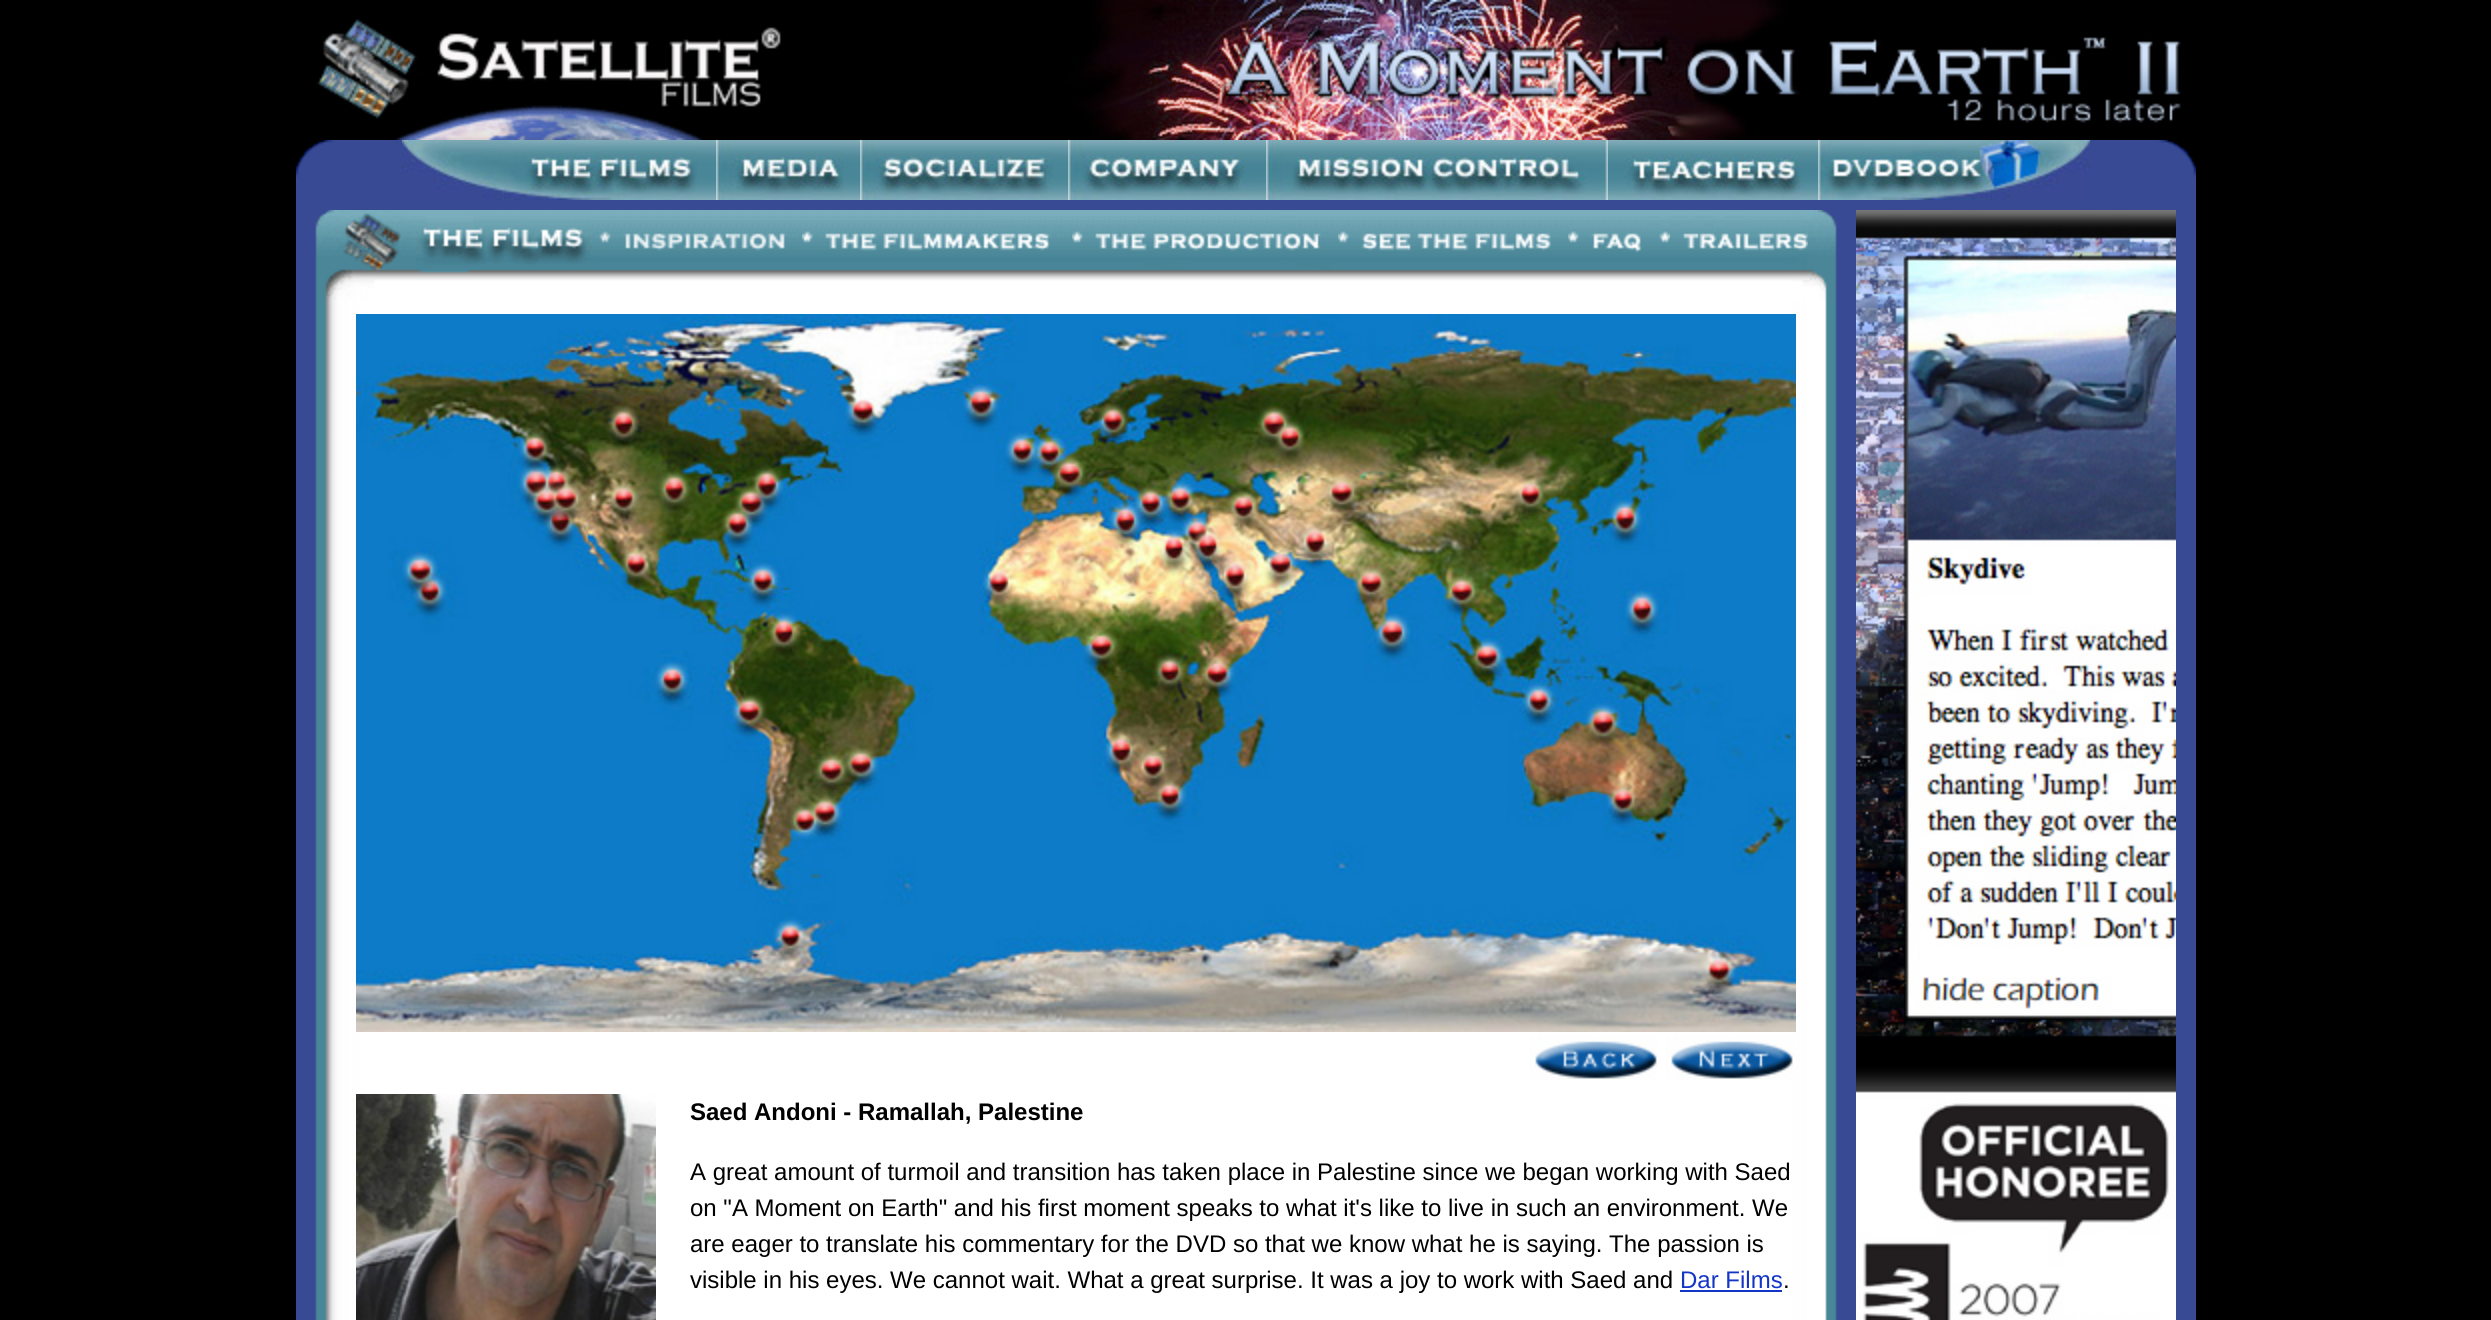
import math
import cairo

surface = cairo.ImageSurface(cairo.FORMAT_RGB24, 2491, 1320)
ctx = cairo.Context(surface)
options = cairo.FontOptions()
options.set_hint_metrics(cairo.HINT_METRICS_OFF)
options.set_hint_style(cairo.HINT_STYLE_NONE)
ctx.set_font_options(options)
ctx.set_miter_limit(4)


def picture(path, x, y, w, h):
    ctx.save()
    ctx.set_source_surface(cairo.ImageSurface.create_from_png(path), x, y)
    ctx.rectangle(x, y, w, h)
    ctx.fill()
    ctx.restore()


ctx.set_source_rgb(0, 0, 0)
ctx.paint()
picture("img1.png", 317, 0, 1864, 140)
ctx.set_source_rgb(0.224, 0.29, 0.58)
ctx.rectangle(296, 177, 1900, 1143)
ctx.fill()
picture("img2.png", 296, 140, 1900, 37)
picture("img3.png", 697, 140, 371, 60)
picture("img4.png", 402, 140, 295, 60)
picture("img5.png", 716, 140, 128, 60)
picture("img6.png", 860, 140, 193, 60)
picture("img7.png", 1068, 140, 198, 60)
picture("img8.png", 1266, 140, 342, 60)
picture("img9.png", 1608, 140, 210, 60)
picture("img10.png", 1818, 140, 272, 60)
picture("img11.png", 315, 300, 1522, 1020)
picture("img12.png", 315, 210, 1522, 90)
picture("img13.png", 416, 216, 176, 54)
picture("img14.png", 592, 231, 210, 39)
picture("img15.png", 802, 231, 270, 39)
picture("img16.png", 1072, 231, 266, 39)
picture("img17.png", 1338, 231, 230, 39)
picture("img18.png", 1568, 225, 102, 45)
picture("img19.png", 1670, 225, 138, 45)
picture("img20.png", 356, 314, 1440, 718)
picture("img21.png", 1530, 1036, 127, 44)
picture("img22.png", 1666, 1036, 127, 44)
picture("img23.png", 356, 1094, 300, 226)
ctx.select_font_face("Liberation Sans", cairo.FONT_SLANT_NORMAL, cairo.FONT_WEIGHT_BOLD)
ctx.set_font_size(24)
ctx.set_source_rgb(0, 0, 0)
ctx.move_to(690, 1120)
ctx.show_text("Saed Andoni - Ramallah, Palestine")
ctx.select_font_face("Liberation Sans")
ctx.move_to(690, 1180)
ctx.show_text("A great amount of turmoil and transition has taken place in Palestine since we began working with Saed")
ctx.move_to(690, 1216)
ctx.show_text("on \"A Moment on Earth\" and his first moment speaks to what it's like to live in such an environment. We")
ctx.move_to(690, 1252)
ctx.show_text("are eager to translate his commentary for the DVD so that we know what he is saying. The passion is")
ctx.move_to(690, 1288)
ctx.show_text("visible in his eyes. We cannot wait. What a great surprise. It was a joy to work with Saed and")
ctx.set_source_rgb(0.078, 0.212, 0.78)
ctx.move_to(1680, 1288)
ctx.show_text("Dar Films")
ctx.rectangle(1680, 1290, 102, 2)
ctx.fill()
ctx.set_source_rgb(0, 0, 0)
ctx.move_to(1783, 1288)
ctx.show_text(".")
picture("img24.png", 1856, 210, 320, 1110)
surface.write_to_png("page.png")
